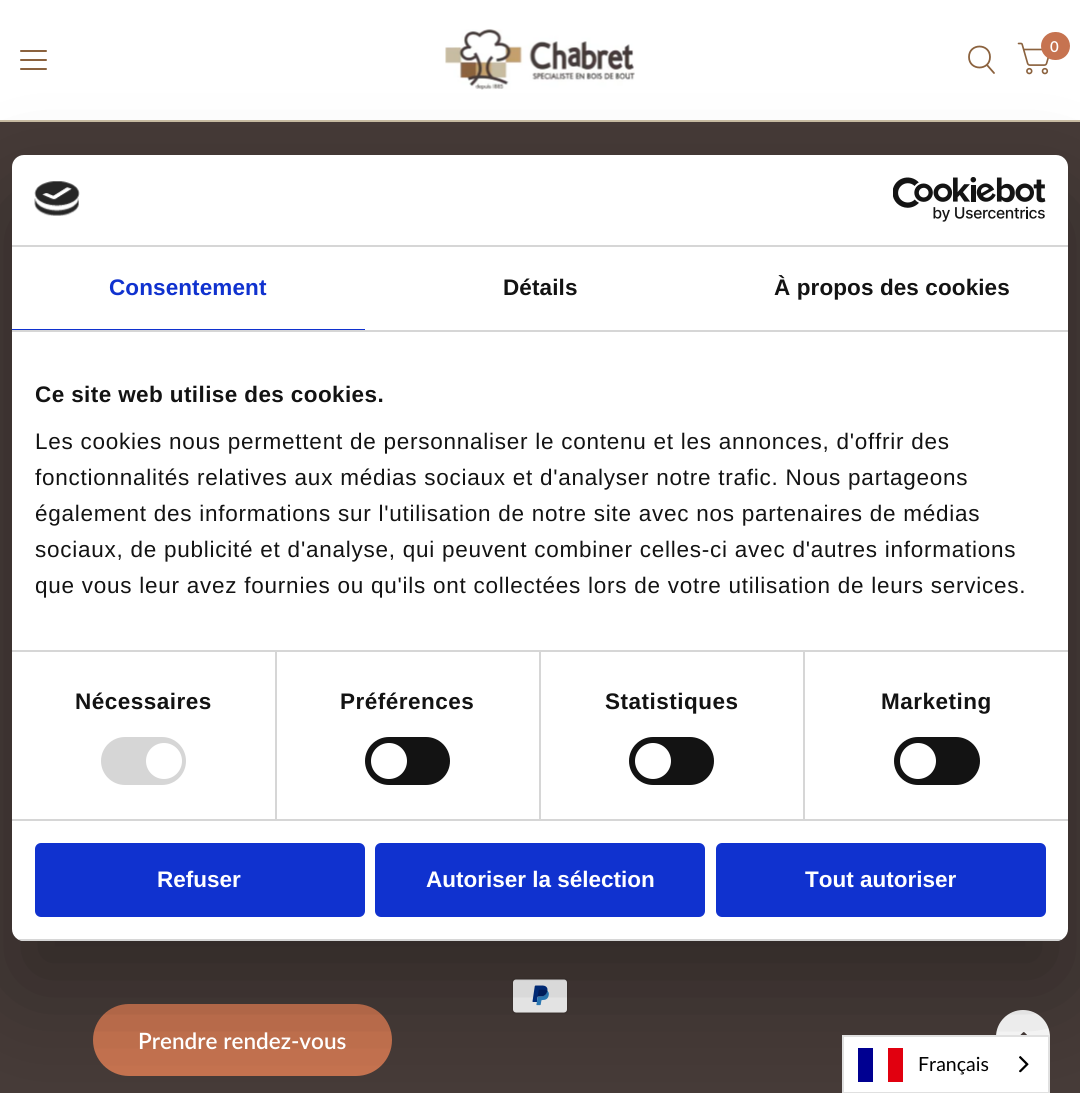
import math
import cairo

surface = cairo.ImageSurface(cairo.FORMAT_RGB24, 1080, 1093)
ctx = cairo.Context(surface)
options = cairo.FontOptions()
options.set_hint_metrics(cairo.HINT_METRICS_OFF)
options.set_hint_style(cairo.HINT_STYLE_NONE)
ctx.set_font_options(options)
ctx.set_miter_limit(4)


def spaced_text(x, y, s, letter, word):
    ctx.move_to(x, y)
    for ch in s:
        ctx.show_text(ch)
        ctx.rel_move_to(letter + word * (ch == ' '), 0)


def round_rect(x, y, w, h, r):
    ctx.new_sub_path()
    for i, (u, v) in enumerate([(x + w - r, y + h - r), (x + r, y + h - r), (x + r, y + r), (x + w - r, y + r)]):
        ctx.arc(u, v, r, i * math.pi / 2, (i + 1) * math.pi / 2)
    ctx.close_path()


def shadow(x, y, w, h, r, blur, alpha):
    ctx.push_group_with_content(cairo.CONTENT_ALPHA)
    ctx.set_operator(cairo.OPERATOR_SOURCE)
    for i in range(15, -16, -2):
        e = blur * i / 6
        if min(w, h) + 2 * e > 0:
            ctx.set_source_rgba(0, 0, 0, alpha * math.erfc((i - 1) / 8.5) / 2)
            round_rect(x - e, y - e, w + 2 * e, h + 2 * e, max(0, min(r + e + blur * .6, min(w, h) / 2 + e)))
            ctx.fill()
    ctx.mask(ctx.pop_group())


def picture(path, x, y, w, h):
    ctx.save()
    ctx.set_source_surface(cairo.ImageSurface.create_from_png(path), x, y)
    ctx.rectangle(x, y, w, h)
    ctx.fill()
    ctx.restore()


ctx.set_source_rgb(0.275, 0.231, 0.22)
ctx.paint()
ctx.set_source_rgb(1, 1, 1)
ctx.rectangle(0, 0, 1080, 120)
ctx.fill()
ctx.set_source_rgb(0.784, 0.737, 0.639)
ctx.rectangle(0, 120, 1080, 2)
ctx.fill()
picture("img1.png", 445, 29, 190, 61)
ctx.new_path()
ctx.move_to(987, 65)
ctx.line_to(994, 73)
ctx.move_to(990, 57)
ctx.curve_to(990, 71, 969, 71, 969, 57)
ctx.curve_to(969, 43, 990, 43, 990, 57)
ctx.close_path()
ctx.set_source_rgb(0.545, 0.384, 0.243)
ctx.set_line_width(1.8)
ctx.set_line_cap(cairo.LINE_CAP_ROUND)
ctx.set_line_join(cairo.LINE_JOIN_ROUND)
ctx.stroke()
picture("img2.png", 1017, 42, 32, 33)
ctx.set_source_rgb(0.776, 0.451, 0.314)
round_rect(1041, 32, 29, 28, 14)
ctx.fill()
ctx.select_font_face("Lato SemiBold")
ctx.set_font_size(15)
ctx.set_source_rgb(1, 1, 1)
ctx.move_to(1050, 52)
ctx.show_text("0")
ctx.set_source_rgb(0.545, 0.384, 0.243)
round_rect(20, 50, 27, 2, 1)
ctx.fill()
round_rect(20, 59, 27, 2, 1)
ctx.fill()
round_rect(20, 68, 27, 2, 1)
ctx.fill()
picture("img3.png", 512, 978, 56, 36)
ctx.set_source_rgb(0.776, 0.451, 0.314)
round_rect(93, 1004, 299, 72, 36)
ctx.fill()
ctx.set_source_rgb(1, 1, 1)
ctx.arc(1023, 1037, 27, 0, 2 * math.pi)
ctx.fill()
picture("img6.png", 1020, 1032, 7, 3)
ctx.set_source_rgb(0, 0, 0)
shadow(12, 203, 1056, 786, 12, 51, 0.3)
ctx.set_source_rgb(1, 1, 1)
round_rect(12, 155, 1056, 786, 12)
ctx.fill()
ctx.set_source_rgb(0.839, 0.839, 0.839)
ctx.rectangle(12, 245, 1056, 2)
ctx.fill()
picture("img4.png", 34, 181, 46, 35)
picture("img5.png", 893, 177, 153, 45)
ctx.rectangle(12, 330, 1056, 2)
ctx.fill()
ctx.set_source_rgb(0.063, 0.196, 0.812)
ctx.rectangle(12, 329, 353, 1)
ctx.fill()
ctx.select_font_face("Liberation Sans", cairo.FONT_SLANT_NORMAL, cairo.FONT_WEIGHT_BOLD)
ctx.set_font_size(22.5)
spaced_text(109, 295, "Consentement", 0.1, 0)
ctx.set_source_rgb(0.078, 0.078, 0.078)
spaced_text(503, 295, "Détails", 0.1, 0)
spaced_text(774, 295, "À propos des cookies", 0.1, 0)
ctx.set_source_rgb(0.839, 0.839, 0.839)
ctx.rectangle(275, 651, 2, 168)
ctx.fill()
ctx.rectangle(539, 651, 2, 168)
ctx.fill()
ctx.rectangle(803, 651, 2, 168)
ctx.fill()
ctx.rectangle(12, 650, 1056, 2)
ctx.fill()
ctx.set_source_rgb(0.078, 0.078, 0.078)
spaced_text(35, 402, "Ce site web utilise des cookies.", 0.4, 0)
ctx.select_font_face("Liberation Sans")
spaced_text(35, 449, "Les cookies nous permettent de personnaliser le contenu et les annonces, d'offrir des", 0.75, 0)
spaced_text(35, 485, "fonctionnalités relatives aux médias sociaux et d'analyser notre trafic. Nous partageons", 0.75, 0)
spaced_text(35, 521, "également des informations sur l'utilisation de notre site avec nos partenaires de médias", 0.75, 0)
spaced_text(35, 557, "sociaux, de publicité et d'analyse, qui peuvent combiner celles-ci avec d'autres informations", 0.75, 0)
spaced_text(35, 593, "que vous leur avez fournies ou qu'ils ont collectées lors de votre utilisation de leurs services.", 0.75, 0)
ctx.set_source_rgb(0.839, 0.839, 0.839)
ctx.rectangle(12, 819, 1056, 2)
ctx.fill()
ctx.select_font_face("Liberation Sans", cairo.FONT_SLANT_NORMAL, cairo.FONT_WEIGHT_BOLD)
ctx.set_source_rgb(0.078, 0.078, 0.078)
spaced_text(75, 709, "Nécessaires", 0.5, 0)
ctx.set_source_rgb(0.839, 0.839, 0.839)
round_rect(101, 737, 85, 48, 24)
ctx.fill()
ctx.set_source_rgb(1, 1, 1)
ctx.arc(164, 761, 18, 0, 2 * math.pi)
ctx.fill()
ctx.set_source_rgb(0.078, 0.078, 0.078)
spaced_text(340, 709, "Préférences", 0.5, 0)
round_rect(365, 737, 85, 48, 24)
ctx.fill()
ctx.set_source_rgb(1, 1, 1)
ctx.arc(389, 761, 18, 0, 2 * math.pi)
ctx.fill()
ctx.set_source_rgb(0.078, 0.078, 0.078)
spaced_text(605, 709, "Statistiques", 0.5, 0)
round_rect(629, 737, 85, 48, 24)
ctx.fill()
ctx.set_source_rgb(1, 1, 1)
ctx.arc(653, 761, 18, 0, 2 * math.pi)
ctx.fill()
ctx.set_source_rgb(0.078, 0.078, 0.078)
spaced_text(881, 709, "Marketing", 0.5, 0)
round_rect(894, 737, 86, 48, 24)
ctx.fill()
ctx.set_source_rgb(1, 1, 1)
ctx.arc(918, 761, 18, 0, 2 * math.pi)
ctx.fill()
ctx.save()
round_rect(12, 155, 1056, 786, 12)
ctx.clip()
ctx.set_source_rgb(0.839, 0.839, 0.839)
ctx.rectangle(12, 939, 1056, 2)
ctx.fill()
ctx.restore()
ctx.set_source_rgb(0.063, 0.196, 0.812)
round_rect(36.5, 844.5, 327, 71, 4.5)
ctx.fill_preserve()
ctx.set_line_width(3)
ctx.set_line_cap(cairo.LINE_CAP_BUTT)
ctx.set_line_join(cairo.LINE_JOIN_MITER)
ctx.stroke()
ctx.set_source_rgb(1, 1, 1)
ctx.move_to(157, 887)
ctx.show_text("Refuser")
ctx.set_source_rgb(0.063, 0.196, 0.812)
round_rect(376.5, 844.5, 327, 71, 4.5)
ctx.fill_preserve()
ctx.stroke()
ctx.set_source_rgb(1, 1, 1)
ctx.move_to(426, 887)
ctx.show_text("Autoriser la sélection")
ctx.set_source_rgb(0.063, 0.196, 0.812)
round_rect(717.5, 844.5, 327, 71, 4.5)
ctx.fill_preserve()
ctx.stroke()
ctx.set_source_rgb(1, 1, 1)
ctx.move_to(805, 887)
ctx.show_text("Tout autoriser")
ctx.select_font_face("Lato SemiBold")
ctx.move_to(138, 1049)
ctx.show_text("Prendre rendez-vous")
ctx.rectangle(843, 1036, 206, 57)
ctx.fill_preserve()
ctx.set_source_rgb(0.878, 0.878, 0.878)
ctx.set_line_width(2)
ctx.stroke()
ctx.set_source_rgb(0, 0, 0.569)
ctx.rectangle(858, 1048, 15, 34)
ctx.fill()
ctx.set_source_rgb(0.882, 0, 0.059)
ctx.rectangle(888, 1048, 15, 34)
ctx.fill()
ctx.select_font_face("Lato")
ctx.set_font_size(19.5)
ctx.set_source_rgb(0, 0, 0)
ctx.move_to(918, 1071)
ctx.show_text("Français")
picture("img7.png", 1019, 1056, 10, 17)
surface.write_to_png("page.png")
